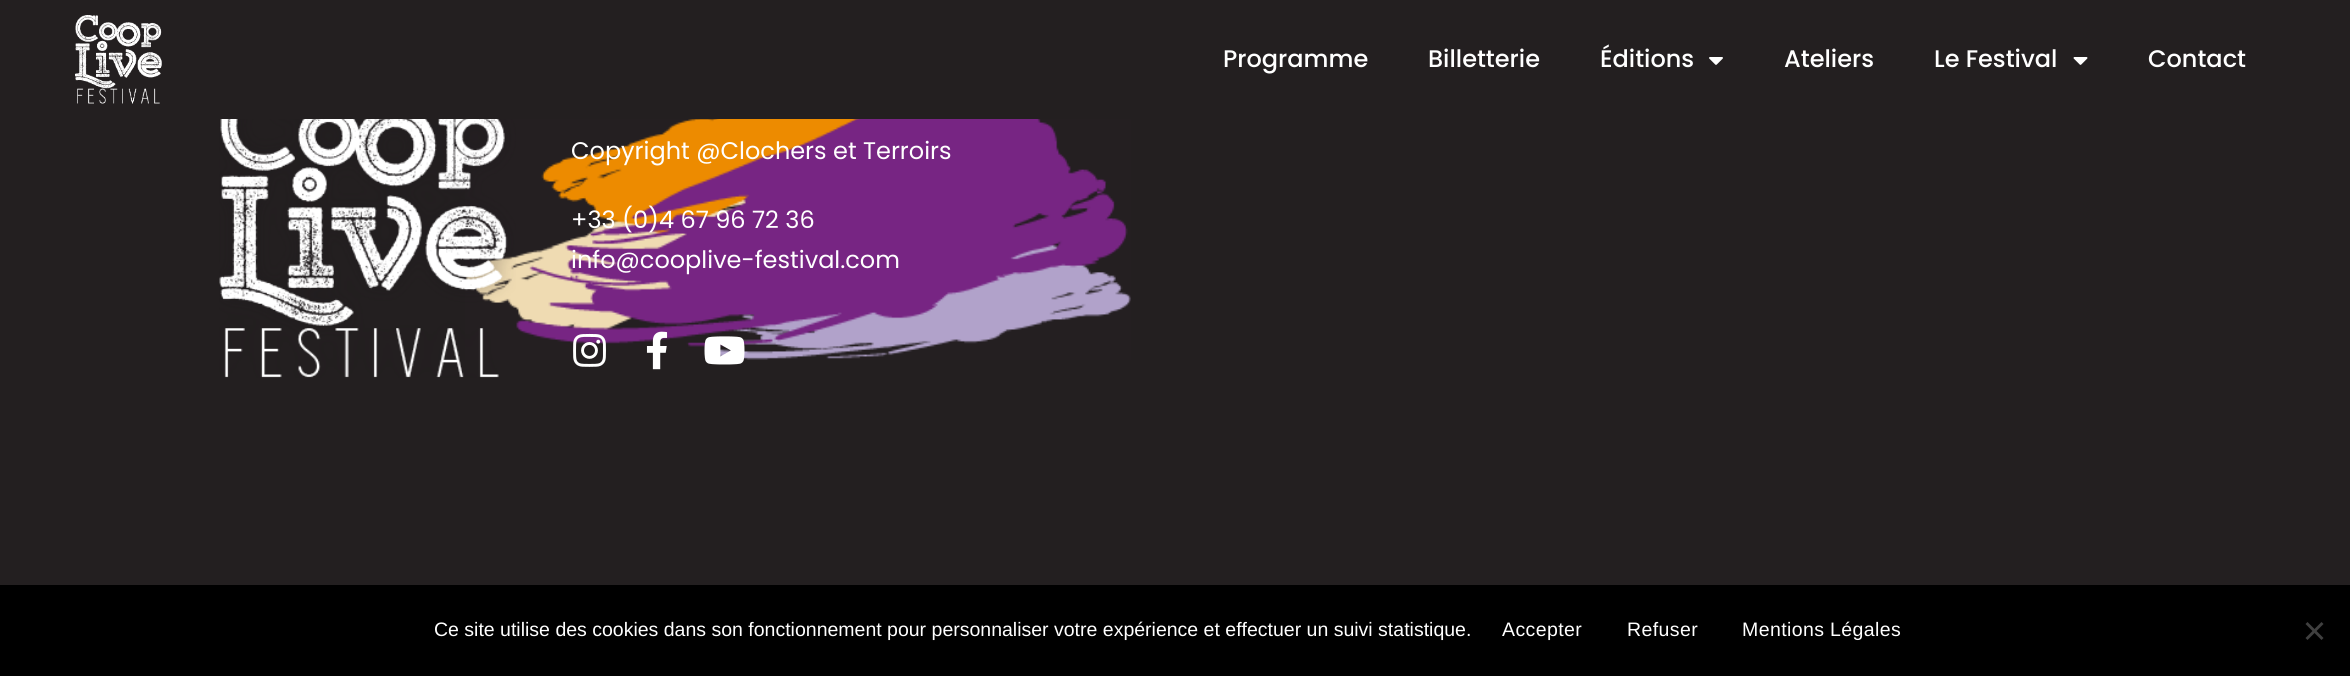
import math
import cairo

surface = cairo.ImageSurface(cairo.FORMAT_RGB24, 2350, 676)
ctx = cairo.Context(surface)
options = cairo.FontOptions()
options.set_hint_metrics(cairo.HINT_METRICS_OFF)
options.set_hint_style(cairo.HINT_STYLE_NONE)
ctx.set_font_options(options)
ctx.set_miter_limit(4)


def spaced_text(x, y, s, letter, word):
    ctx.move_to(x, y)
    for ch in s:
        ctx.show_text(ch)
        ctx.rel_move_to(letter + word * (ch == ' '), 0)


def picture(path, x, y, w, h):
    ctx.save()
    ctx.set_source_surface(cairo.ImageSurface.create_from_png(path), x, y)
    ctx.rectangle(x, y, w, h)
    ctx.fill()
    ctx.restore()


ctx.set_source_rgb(0.137, 0.122, 0.125)
ctx.paint()
picture("img1.png", 75, 15, 87, 89)
ctx.select_font_face("Poppins Medium")
ctx.set_font_size(24)
ctx.set_source_rgb(1, 1, 1)
ctx.move_to(1223, 67)
ctx.show_text("Programme")
ctx.move_to(1428, 67)
ctx.show_text("Billetterie")
ctx.move_to(1600, 67)
ctx.show_text("Éditions")
picture("img2.png", 1709, 57, 14, 8)
ctx.move_to(1784, 67)
ctx.show_text("Ateliers")
ctx.move_to(1934, 67)
ctx.show_text("Le Festival")
picture("img3.png", 2073, 57, 15, 8)
ctx.move_to(2148, 67)
ctx.show_text("Contact")
picture("img4.png", 465, 119, 666, 241)
picture("img5.png", 219, 119, 297, 259)
ctx.select_font_face("Poppins")
ctx.move_to(571, 159)
ctx.show_text("Copyright @Clochers et Terroirs")
ctx.move_to(571, 228)
ctx.show_text("+33 (0)4 67 96 72 36")
ctx.move_to(571, 268)
ctx.show_text("info@cooplive-festival.com")
picture("img6.png", 573, 333, 33, 34)
picture("img7.png", 646, 331, 22, 39)
picture("img8.png", 704, 336, 41, 29)
ctx.set_source_rgb(0, 0, 0)
ctx.rectangle(0, 585, 2350, 91)
ctx.fill()
ctx.select_font_face("Liberation Sans")
ctx.set_font_size(19.5)
ctx.set_source_rgb(1, 1, 1)
ctx.move_to(434, 636)
ctx.show_text("Ce site utilise des cookies dans son fonctionnement pour personnaliser votre expérience et effectuer un suivi statistique.")
spaced_text(1502, 636, "Accepter", 0.4, 0)
spaced_text(1627, 636, "Refuser", 0.4, 0)
spaced_text(1742, 636, "Mentions Légales", 0.4, 0)
ctx.set_source_rgb(0.251, 0.251, 0.251)
ctx.new_path()
ctx.move_to(2321.5, 622)
ctx.line_to(2323.5, 624)
ctx.line_to(2307.5, 640)
ctx.line_to(2305.5, 638)
ctx.close_path()
ctx.fill()
ctx.new_path()
ctx.move_to(2305.5, 624)
ctx.line_to(2307.5, 622)
ctx.line_to(2323.5, 638)
ctx.line_to(2321.5, 640)
ctx.close_path()
ctx.fill()
surface.write_to_png("page.png")
